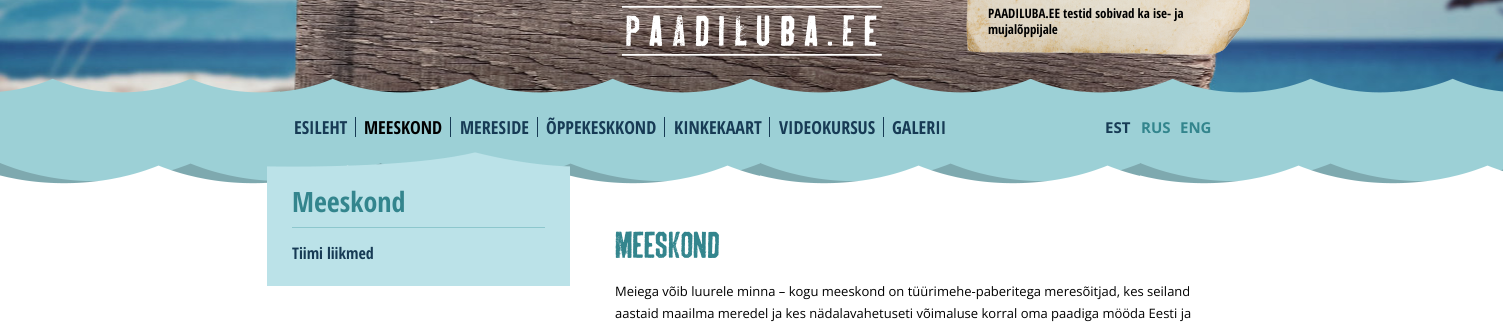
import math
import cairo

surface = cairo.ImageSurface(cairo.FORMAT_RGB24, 1503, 335)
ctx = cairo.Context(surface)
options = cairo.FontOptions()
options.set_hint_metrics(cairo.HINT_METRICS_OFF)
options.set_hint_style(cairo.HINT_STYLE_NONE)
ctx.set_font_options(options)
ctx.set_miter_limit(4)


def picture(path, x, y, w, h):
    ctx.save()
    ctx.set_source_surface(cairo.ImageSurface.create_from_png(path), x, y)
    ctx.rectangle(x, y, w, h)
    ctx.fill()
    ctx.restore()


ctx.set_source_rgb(1, 1, 1)
ctx.paint()
picture("img1.png", 0, 0, 1503, 93)
picture("img2.png", 622, 5, 260, 51)
picture("img3.png", 966, 0, 284, 55)
ctx.select_font_face("Open Sans Condensed", cairo.FONT_SLANT_NORMAL, cairo.FONT_WEIGHT_BOLD)
ctx.set_font_size(13)
ctx.set_source_rgb(0, 0, 0)
ctx.move_to(988, 18)
ctx.show_text("PAADILUBA.EE testid sobivad ka ise- ja")
ctx.move_to(988, 34)
ctx.show_text("mujalõppijale")
picture("img4.png", 0, 78, 1503, 80)
ctx.set_source_rgb(0.612, 0.816, 0.839)
ctx.rectangle(0, 158, 1503, 24)
ctx.fill()
ctx.set_font_size(18)
ctx.set_source_rgb(0.09, 0.231, 0.333)
ctx.move_to(294, 134)
ctx.show_text("ESILEHT")
ctx.rectangle(355, 117, 1, 20)
ctx.fill()
ctx.set_source_rgb(0, 0, 0)
ctx.move_to(364, 134)
ctx.show_text("MEESKOND")
ctx.set_source_rgb(0.09, 0.231, 0.333)
ctx.rectangle(450, 117, 1, 20)
ctx.fill()
ctx.move_to(460, 134)
ctx.show_text("MERESIDE")
ctx.rectangle(537, 117, 1, 20)
ctx.fill()
ctx.move_to(546, 134)
ctx.show_text("ÕPPEKESKKOND")
ctx.rectangle(664, 117, 1, 20)
ctx.fill()
ctx.move_to(674, 134)
ctx.show_text("KINKEKAART")
ctx.rectangle(769, 117, 1, 20)
ctx.fill()
ctx.move_to(779, 134)
ctx.show_text("VIDEOKURSUS")
ctx.rectangle(883, 117, 1, 20)
ctx.fill()
ctx.move_to(892, 134)
ctx.show_text("GALERII")
ctx.select_font_face("Open Sans", cairo.FONT_SLANT_NORMAL, cairo.FONT_WEIGHT_BOLD)
ctx.set_font_size(15)
ctx.move_to(1105, 133)
ctx.show_text("EST")
ctx.set_source_rgb(0.2, 0.522, 0.553)
ctx.move_to(1141, 133)
ctx.show_text("RUS")
ctx.move_to(1180, 133)
ctx.show_text("ENG")
picture("img5.png", 0, 163, 1503, 23)
ctx.set_source_rgb(0.733, 0.886, 0.91)
ctx.rectangle(267, 176, 303, 110)
ctx.fill()
picture("img6.png", 267, 152, 303, 24)
ctx.set_source_rgb(0.553, 0.78, 0.804)
ctx.rectangle(292, 227, 253, 1)
ctx.fill()
ctx.select_font_face("Open Sans Condensed", cairo.FONT_SLANT_NORMAL, cairo.FONT_WEIGHT_BOLD)
ctx.set_font_size(28)
ctx.set_source_rgb(0.2, 0.522, 0.553)
ctx.move_to(292, 212)
ctx.show_text("Meeskond")
ctx.set_font_size(16)
ctx.set_source_rgb(0.09, 0.231, 0.333)
ctx.move_to(292, 259)
ctx.show_text("Tiimi liikmed")
ctx.select_font_face("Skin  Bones")
ctx.set_font_size(38)
ctx.set_source_rgb(0.2, 0.522, 0.553)
ctx.move_to(615, 258)
ctx.show_text("Meeskond")
ctx.select_font_face("Open Sans")
ctx.set_font_size(13)
ctx.set_source_rgb(0, 0, 0)
ctx.move_to(615, 296)
ctx.show_text("Meiega võib luurele minna – kogu meeskond on tüürimehe-paberitega meresõitjad, kes seiland")
ctx.move_to(615, 318)
ctx.show_text("aastaid maailma meredel ja kes nädalavahetuseti võimaluse korral oma paadiga mööda Eesti ja")
surface.write_to_png("page.png")
